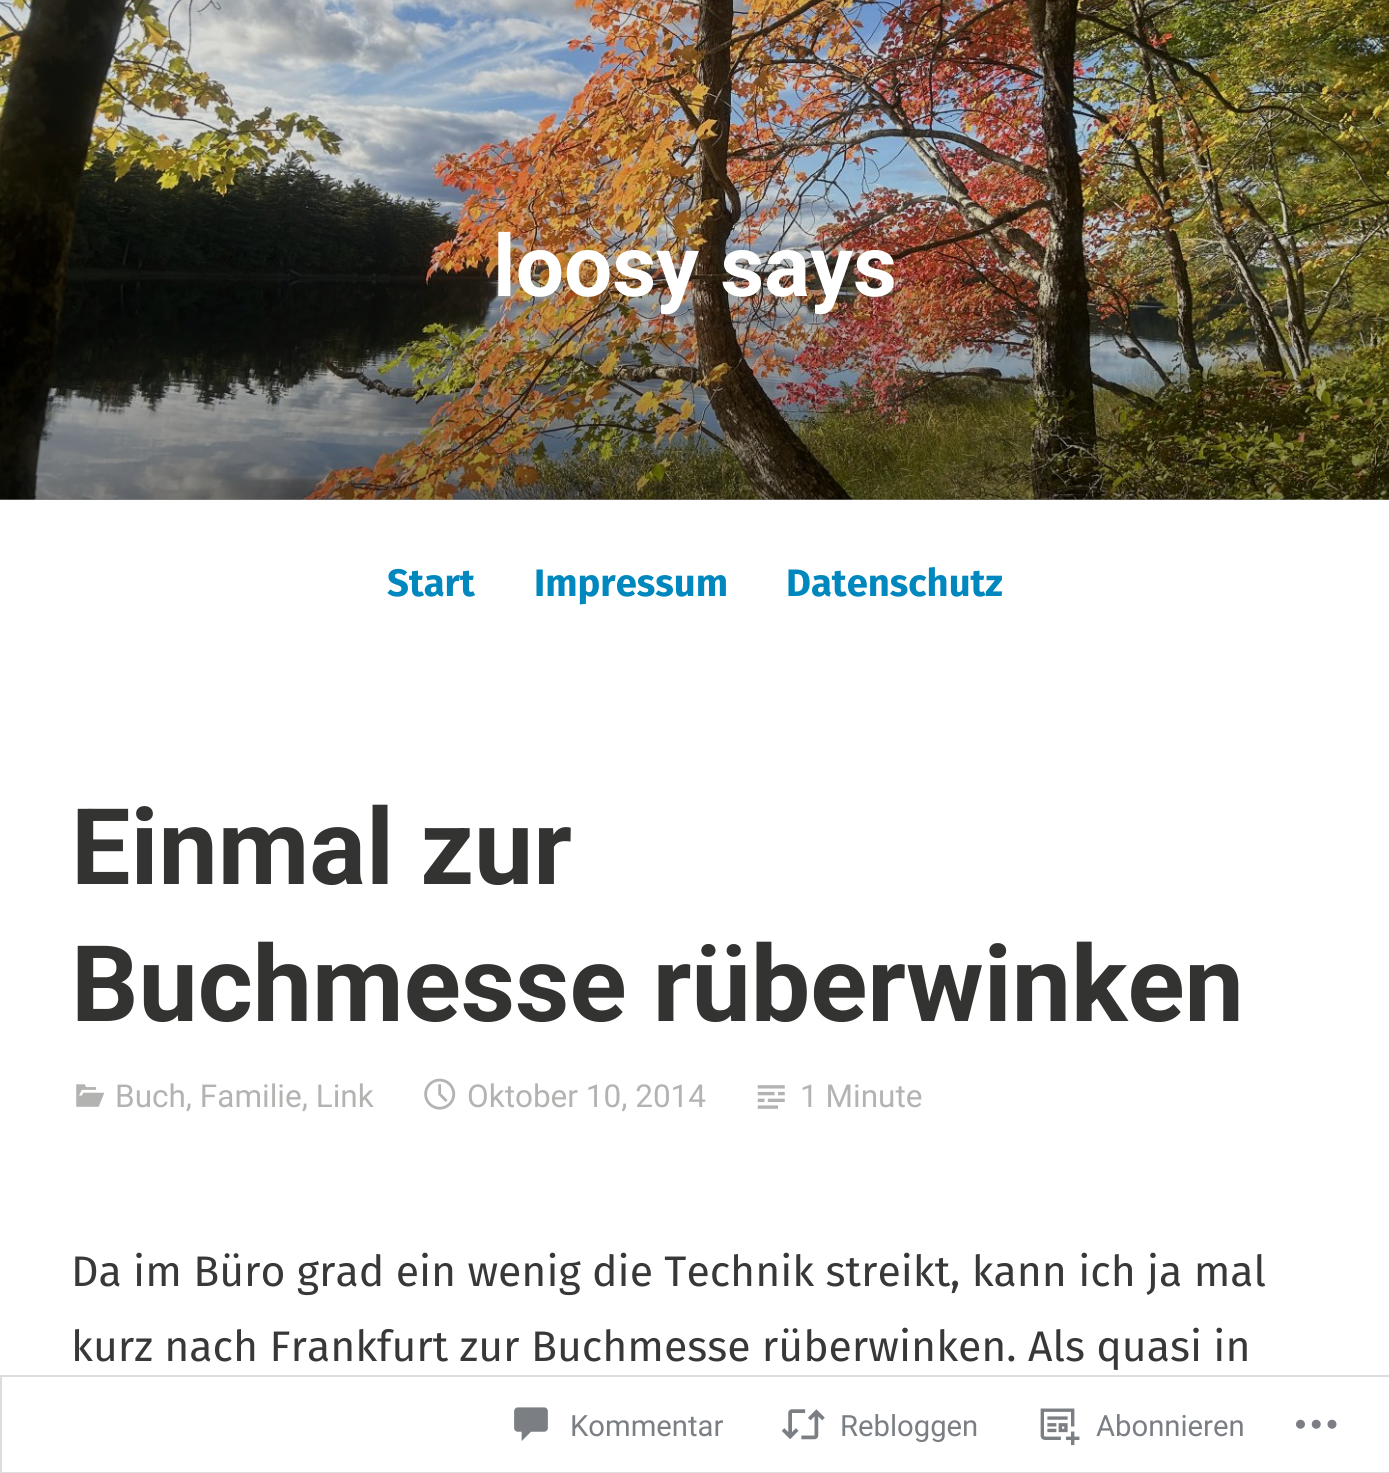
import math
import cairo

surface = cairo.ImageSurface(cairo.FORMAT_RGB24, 1389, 1473)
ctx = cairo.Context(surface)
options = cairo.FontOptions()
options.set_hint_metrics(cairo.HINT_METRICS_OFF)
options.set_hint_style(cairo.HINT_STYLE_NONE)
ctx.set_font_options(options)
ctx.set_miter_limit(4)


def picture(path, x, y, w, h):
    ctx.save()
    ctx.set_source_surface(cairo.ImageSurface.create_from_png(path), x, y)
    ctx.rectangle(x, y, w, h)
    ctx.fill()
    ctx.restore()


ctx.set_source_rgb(1, 1, 1)
ctx.paint()
picture("img1.png", 0, 0, 1389, 500)
gradient = cairo.LinearGradient(695, 0, 695, 500)
gradient.add_color_stop_rgba(0.5, 0, 0, 0, 0.15)
gradient.add_color_stop_rgba(1, 0, 0, 0, 0.45)
ctx.set_source(gradient)
ctx.rectangle(0, 0, 1389, 500)
ctx.fill()
ctx.select_font_face("Roboto", cairo.FONT_SLANT_NORMAL, cairo.FONT_WEIGHT_BOLD)
ctx.set_font_size(85.5)
ctx.set_source_rgb(1, 1, 1)
ctx.move_to(493, 296)
ctx.show_text("loosy says")
ctx.select_font_face("Fira Sans", cairo.FONT_SLANT_NORMAL, cairo.FONT_WEIGHT_BOLD)
ctx.set_font_size(38.25)
ctx.set_source_rgb(0, 0.529, 0.745)
ctx.move_to(387, 596)
ctx.show_text("Start")
ctx.move_to(534, 596)
ctx.show_text("Impressum")
ctx.move_to(786, 596)
ctx.show_text("Datenschutz")
ctx.select_font_face("Roboto", cairo.FONT_SLANT_NORMAL, cairo.FONT_WEIGHT_BOLD)
ctx.set_font_size(105.75)
ctx.set_source_rgb(0.2, 0.2, 0.196)
ctx.move_to(71, 884)
ctx.show_text("Einmal zur")
ctx.move_to(71, 1021)
ctx.show_text("Buchmesse rüberwinken")
picture("img2.png", 76, 1084, 29, 23)
ctx.select_font_face("Roboto")
ctx.set_font_size(31.5)
ctx.set_source_rgb(0.702, 0.702, 0.694)
ctx.move_to(115, 1107)
ctx.show_text("Buch, Familie, Link")
picture("img3.png", 424, 1078, 32, 32)
ctx.move_to(467, 1107)
ctx.show_text("Oktober 10, 2014")
picture("img4.png", 757, 1085, 28, 24)
ctx.move_to(800, 1107)
ctx.show_text("1 Minute")
ctx.select_font_face("Fira Sans")
ctx.set_font_size(42.75)
ctx.set_source_rgb(0.22, 0.22, 0.22)
ctx.move_to(71, 1286)
ctx.show_text("Da im Büro grad ein wenig die Technik streikt, kann ich ja mal")
ctx.move_to(71, 1361)
ctx.show_text("kurz nach Frankfurt zur Buchmesse rüberwinken. Als quasi in")
ctx.rectangle(1, 1376, 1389, 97)
ctx.set_source_rgb(0.867, 0.867, 0.875)
ctx.stroke()
picture("img5.png", 514, 1407, 34, 34)
ctx.select_font_face("Roboto")
ctx.set_font_size(29.25)
ctx.set_source_rgb(0.482, 0.498, 0.518)
ctx.move_to(570, 1436)
ctx.show_text("Kommentar")
picture("img6.png", 781, 1409, 44, 31)
ctx.move_to(840, 1436)
ctx.show_text("Rebloggen")
picture("img7.png", 1040, 1408, 40, 38)
ctx.move_to(1096, 1436)
ctx.show_text("Abonnieren")
picture("img8.png", 1296, 1419, 41, 10)
surface.write_to_png("page.png")
